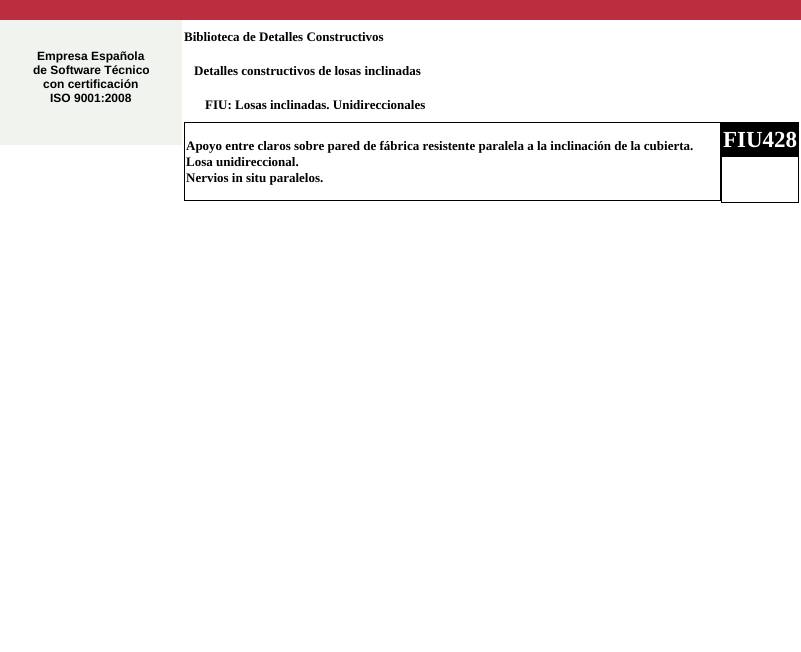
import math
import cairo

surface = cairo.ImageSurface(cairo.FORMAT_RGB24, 801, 652)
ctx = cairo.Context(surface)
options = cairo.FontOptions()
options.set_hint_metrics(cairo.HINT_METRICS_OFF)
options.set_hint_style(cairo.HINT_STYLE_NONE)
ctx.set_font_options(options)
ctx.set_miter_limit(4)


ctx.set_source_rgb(1, 1, 1)
ctx.paint()
ctx.set_source_rgb(0.733, 0.176, 0.247)
ctx.rectangle(0, 0, 801, 20)
ctx.fill()
ctx.set_source_rgb(0.945, 0.953, 0.933)
ctx.rectangle(0, 20, 182, 125)
ctx.fill()
ctx.select_font_face("Liberation Sans", cairo.FONT_SLANT_NORMAL, cairo.FONT_WEIGHT_BOLD)
ctx.set_font_size(12)
ctx.set_source_rgb(0, 0, 0)
ctx.move_to(37, 60)
ctx.show_text("Empresa Española")
ctx.move_to(33, 74)
ctx.show_text("de Software Técnico")
ctx.move_to(43, 88)
ctx.show_text("con certificación")
ctx.move_to(50, 102)
ctx.show_text("ISO 9001:2008")
ctx.select_font_face("Liberation Serif", cairo.FONT_SLANT_NORMAL, cairo.FONT_WEIGHT_BOLD)
ctx.set_font_size(13)
ctx.move_to(184, 41)
ctx.show_text("Biblioteca de Detalles Constructivos")
ctx.move_to(194, 75)
ctx.show_text("Detalles constructivos de losas inclinadas")
ctx.move_to(205, 109)
ctx.show_text("FIU: Losas inclinadas. Unidireccionales")
ctx.rectangle(184, 122, 1, 79)
ctx.fill()
ctx.rectangle(185, 122, 536, 1)
ctx.fill()
ctx.rectangle(720, 122, 1, 79)
ctx.fill()
ctx.move_to(186, 150)
ctx.show_text("Apoyo entre claros sobre pared de fábrica resistente paralela a la inclinación de la cubierta.")
ctx.move_to(186, 166)
ctx.show_text("Losa unidireccional.")
ctx.move_to(186, 182)
ctx.show_text("Nervios in situ paralelos.")
ctx.rectangle(185, 200, 536, 1)
ctx.fill()
ctx.rectangle(721, 122, 78, 35)
ctx.fill()
ctx.set_font_size(23)
ctx.set_source_rgb(1, 1, 1)
ctx.move_to(723, 147)
ctx.show_text("FIU428")
ctx.set_source_rgb(0, 0, 0)
ctx.rectangle(721, 157, 1, 46)
ctx.fill()
ctx.rectangle(798, 157, 1, 46)
ctx.fill()
ctx.rectangle(722, 202, 77, 1)
ctx.fill()
surface.write_to_png("page.png")
